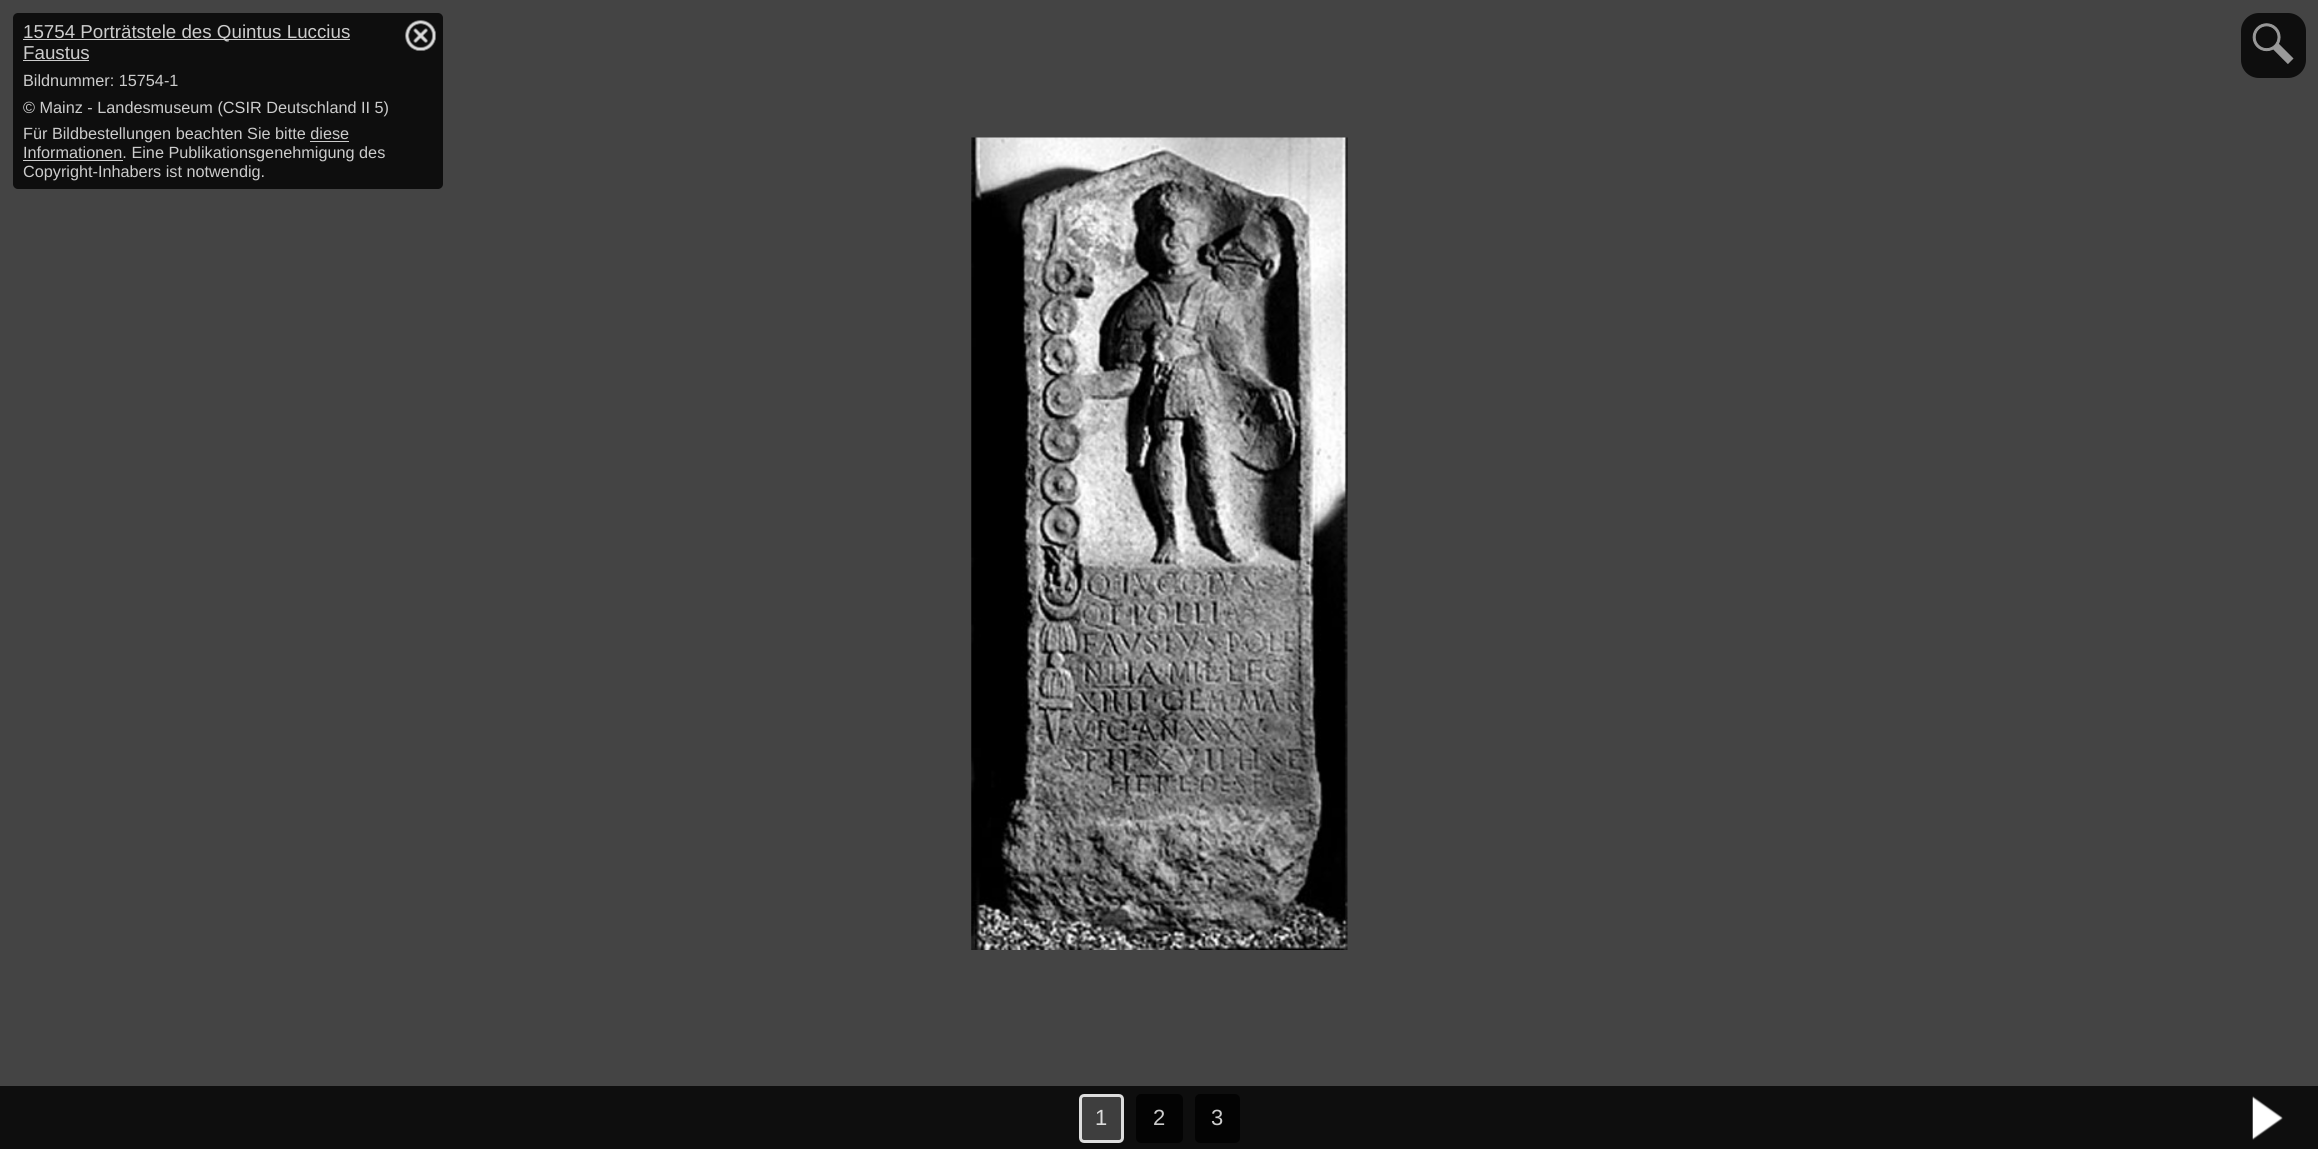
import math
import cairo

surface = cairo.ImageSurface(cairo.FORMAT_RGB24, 2318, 1149)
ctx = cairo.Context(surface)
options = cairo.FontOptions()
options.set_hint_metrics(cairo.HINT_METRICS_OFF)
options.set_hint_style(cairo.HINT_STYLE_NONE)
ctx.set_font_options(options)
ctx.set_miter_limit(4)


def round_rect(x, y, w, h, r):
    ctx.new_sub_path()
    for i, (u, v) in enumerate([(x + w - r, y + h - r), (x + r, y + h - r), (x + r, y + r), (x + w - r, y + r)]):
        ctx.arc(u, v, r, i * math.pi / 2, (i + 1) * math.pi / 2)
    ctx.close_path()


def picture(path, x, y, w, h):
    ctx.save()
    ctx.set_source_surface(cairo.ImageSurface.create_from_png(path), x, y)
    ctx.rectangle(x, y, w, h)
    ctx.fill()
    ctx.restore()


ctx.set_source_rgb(0.267, 0.267, 0.267)
ctx.paint()
ctx.set_source_rgb(0.055, 0.055, 0.055)
round_rect(13, 13, 430, 176, 5)
ctx.fill()
ctx.set_source_rgb(0.8, 0.8, 0.8)
ctx.rectangle(23, 39, 327, 1)
ctx.fill()
ctx.select_font_face("Liberation Sans")
ctx.set_font_size(18.75)
ctx.move_to(23, 38)
ctx.show_text("15754 Porträtstele des Quintus Luccius")
ctx.move_to(23, 59)
ctx.show_text("Faustus")
ctx.rectangle(23, 60, 66, 1)
ctx.fill()
picture("img1.png", 405, 20, 31, 31)
ctx.set_font_size(16.25)
ctx.move_to(23, 86)
ctx.show_text("Bildnummer: 15754-1")
ctx.move_to(23, 113)
ctx.show_text("© Mainz - Landesmuseum (CSIR Deutschland II 5)")
ctx.move_to(23, 139)
ctx.show_text("Für Bildbestellungen beachten Sie bitte diese")
ctx.rectangle(23, 160, 100, 1)
ctx.fill()
ctx.move_to(23, 158)
ctx.show_text("Informationen. Eine Publikationsgenehmigung des")
ctx.rectangle(310, 141, 39, 1)
ctx.fill()
ctx.move_to(23, 177)
ctx.show_text("Copyright-Inhabers ist notwendig.")
ctx.set_source_rgb(0.055, 0.055, 0.055)
round_rect(2241, 13, 65, 65, 18)
ctx.fill()
picture("img2.png", 2252, 23, 42, 41)
picture("img3.png", 971, 137, 377, 813)
ctx.rectangle(0, 1086, 2318, 63)
ctx.fill()
ctx.set_source_rgb(0.243, 0.243, 0.243)
round_rect(1080.5, 1095.5, 42, 46, 3.5)
ctx.fill_preserve()
ctx.set_source_rgb(0.867, 0.867, 0.867)
ctx.set_line_width(3)
ctx.stroke()
ctx.set_font_size(22)
ctx.move_to(1095, 1125)
ctx.show_text("1")
ctx.set_source_rgb(0.012, 0.012, 0.012)
round_rect(1136, 1094, 47, 49, 5)
ctx.fill()
ctx.set_source_rgb(0.8, 0.8, 0.8)
ctx.move_to(1153, 1125)
ctx.show_text("2")
ctx.set_source_rgb(0.012, 0.012, 0.012)
round_rect(1195, 1094, 45, 49, 5)
ctx.fill()
ctx.set_source_rgb(0.8, 0.8, 0.8)
ctx.move_to(1211, 1125)
ctx.show_text("3")
picture("img4.png", 2252, 1096, 31, 44)
surface.write_to_png("page.png")
